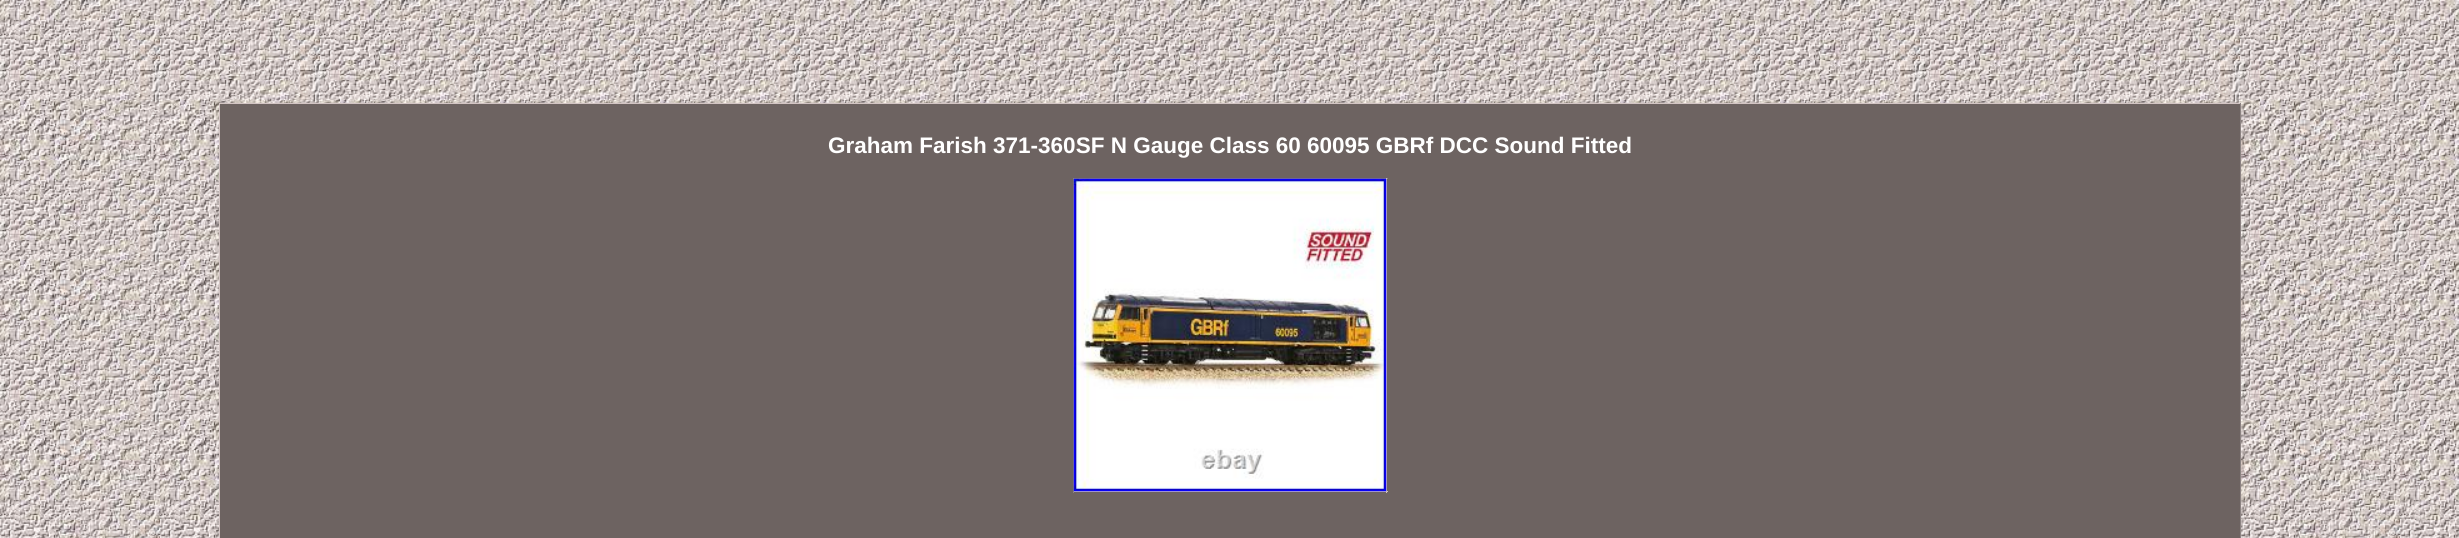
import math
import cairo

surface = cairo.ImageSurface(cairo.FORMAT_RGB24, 2459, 538)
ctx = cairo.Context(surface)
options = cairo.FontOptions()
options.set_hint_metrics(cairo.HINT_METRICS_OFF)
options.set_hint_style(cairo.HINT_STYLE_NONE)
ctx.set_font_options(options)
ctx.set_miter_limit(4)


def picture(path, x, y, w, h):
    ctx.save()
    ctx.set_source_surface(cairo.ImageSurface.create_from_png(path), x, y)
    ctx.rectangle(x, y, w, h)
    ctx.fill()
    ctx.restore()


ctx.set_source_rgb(1, 1, 1)
ctx.paint()
picture("img1.png", 0, 0, 2459, 538)
ctx.set_source_rgb(0.427, 0.388, 0.38)
ctx.rectangle(220, 104, 2020, 434)
ctx.fill()
ctx.set_source_rgb(0.824, 0.769, 0.765)
ctx.rectangle(219, 103, 2022, 1)
ctx.fill()
ctx.set_source_rgb(0.549, 0.514, 0.51)
ctx.rectangle(2240, 103, 1, 435)
ctx.fill()
ctx.set_source_rgb(0.824, 0.769, 0.765)
ctx.rectangle(219, 103, 1, 435)
ctx.fill()
ctx.select_font_face("Liberation Sans", cairo.FONT_SLANT_NORMAL, cairo.FONT_WEIGHT_BOLD)
ctx.set_font_size(22.5)
ctx.set_source_rgb(1, 1, 1)
ctx.move_to(828, 153)
ctx.show_text("Graham Farish 371-360SF N Gauge Class 60 60095 GBRf DCC Sound Fitted")
ctx.set_source_rgb(0.549, 0.514, 0.51)
ctx.rectangle(1073, 178, 315, 1)
ctx.fill()
ctx.set_source_rgb(0.824, 0.769, 0.765)
ctx.rectangle(1386, 178, 1, 315)
ctx.fill()
ctx.rectangle(1073, 491, 315, 1)
ctx.fill()
ctx.set_source_rgb(0.549, 0.514, 0.51)
ctx.rectangle(1073, 178, 1, 315)
ctx.fill()
picture("img2.png", 1073, 178, 314, 314)
surface.write_to_png("page.png")
